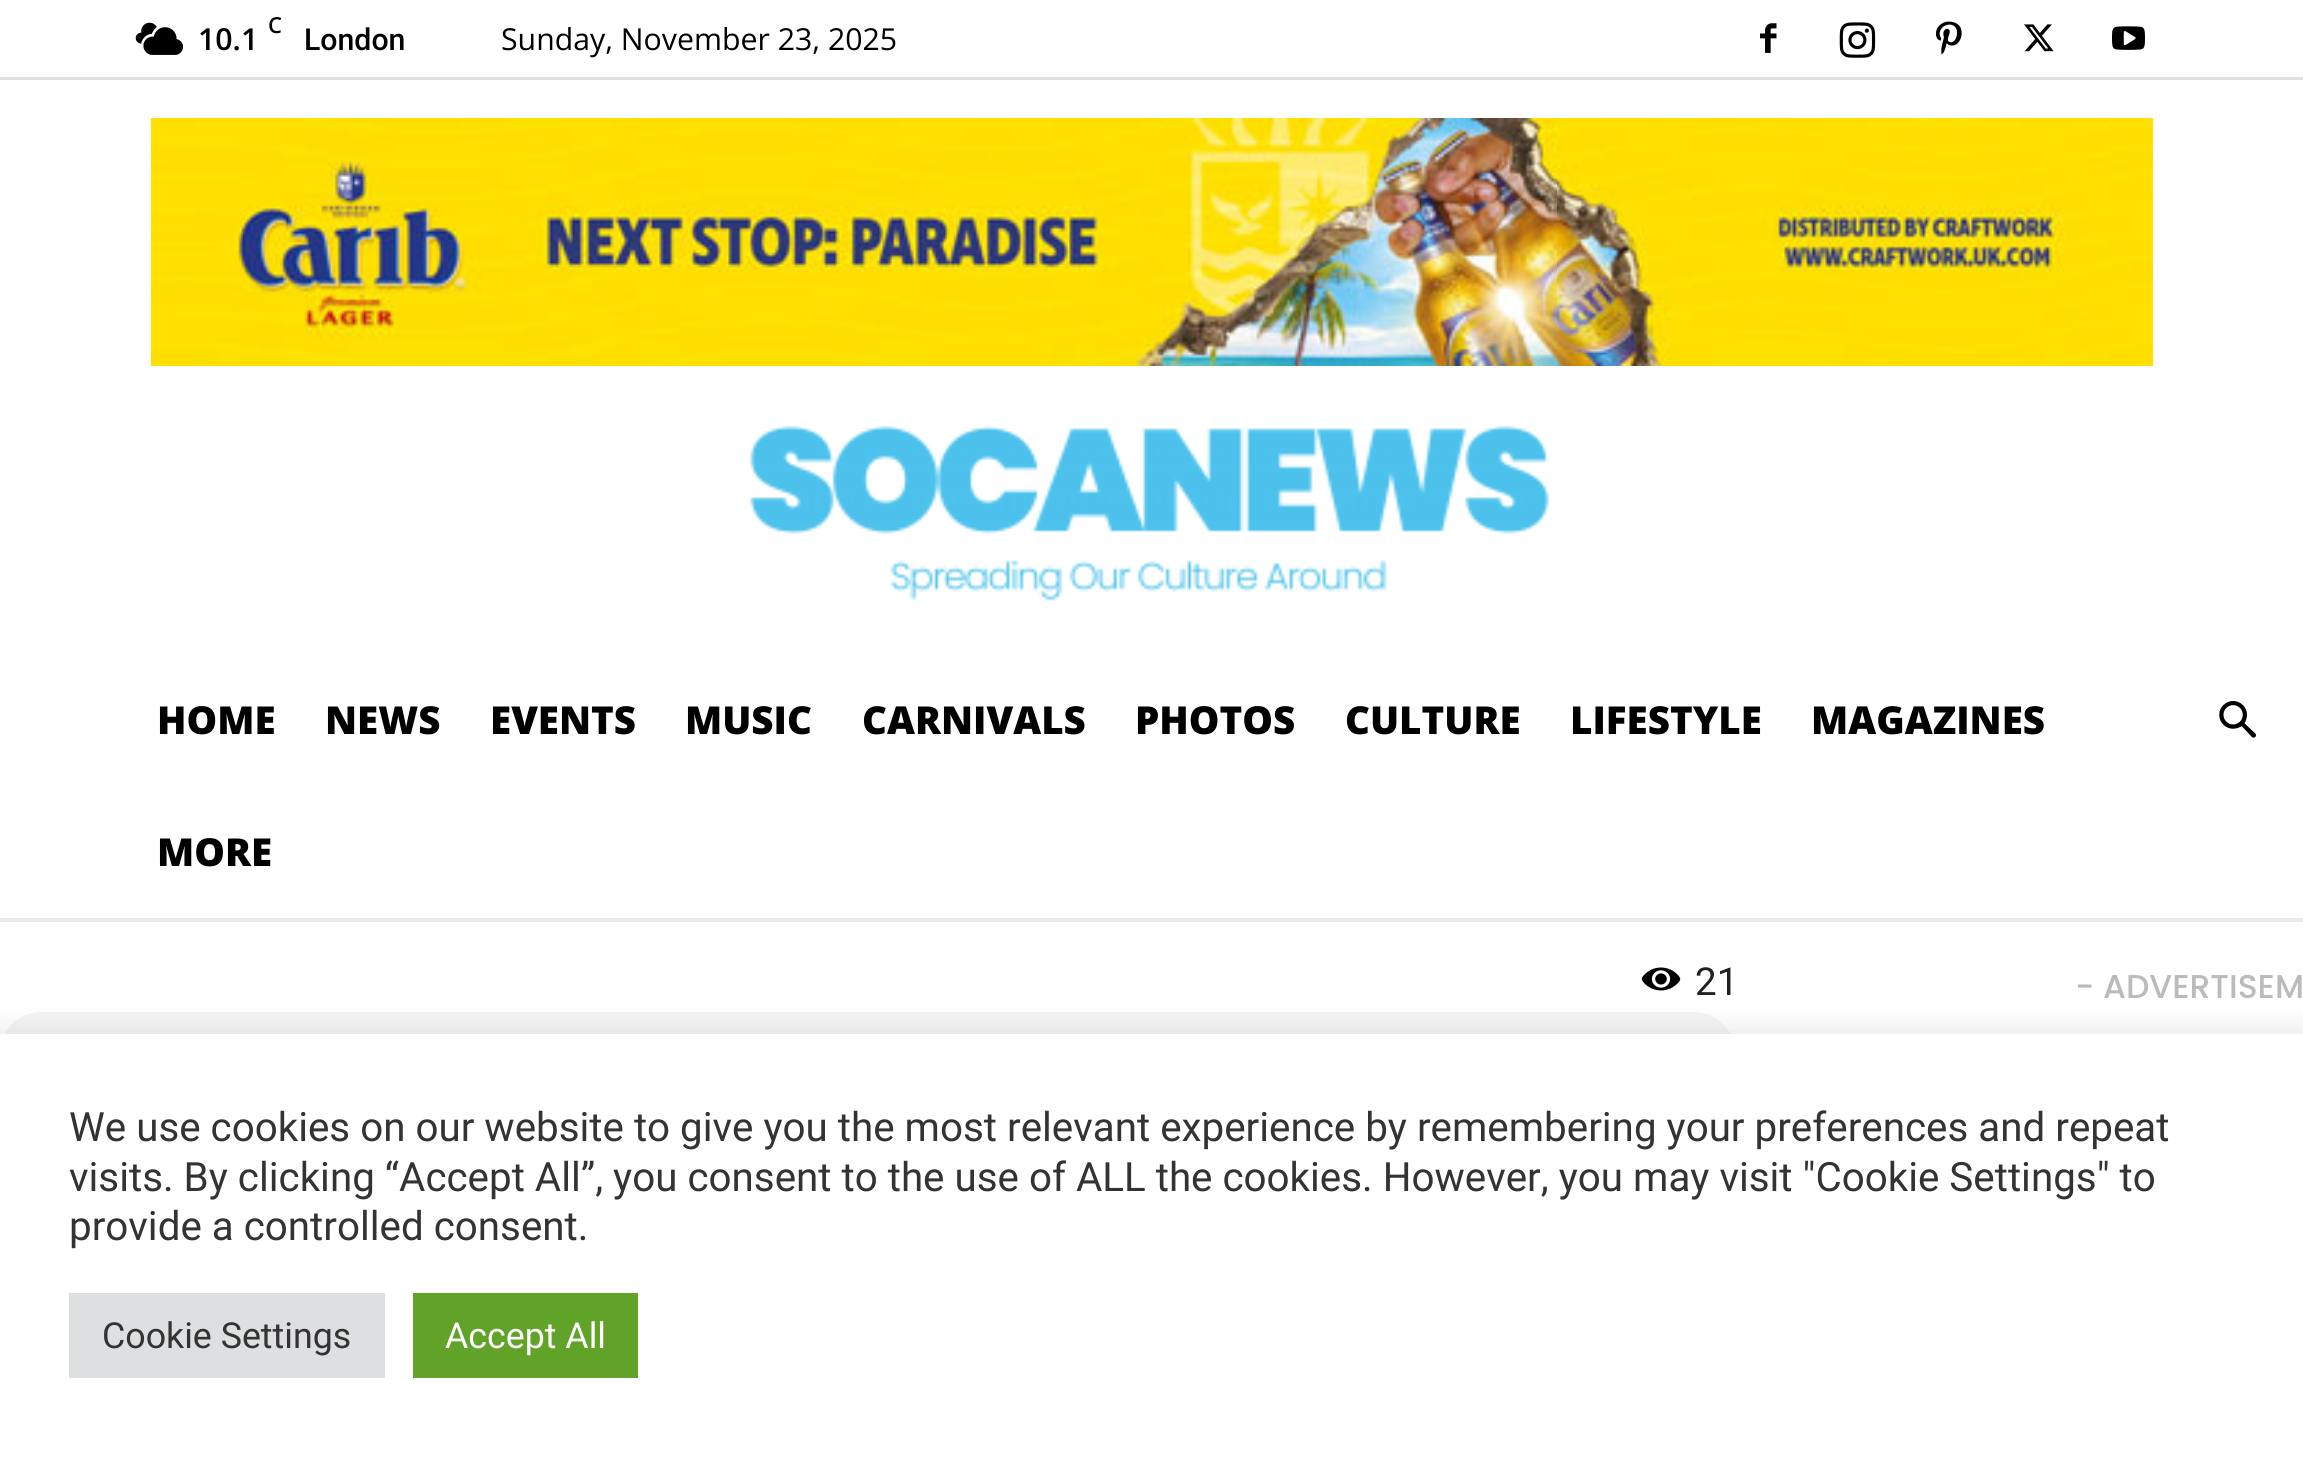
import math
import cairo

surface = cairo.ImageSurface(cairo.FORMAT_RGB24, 2303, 1460)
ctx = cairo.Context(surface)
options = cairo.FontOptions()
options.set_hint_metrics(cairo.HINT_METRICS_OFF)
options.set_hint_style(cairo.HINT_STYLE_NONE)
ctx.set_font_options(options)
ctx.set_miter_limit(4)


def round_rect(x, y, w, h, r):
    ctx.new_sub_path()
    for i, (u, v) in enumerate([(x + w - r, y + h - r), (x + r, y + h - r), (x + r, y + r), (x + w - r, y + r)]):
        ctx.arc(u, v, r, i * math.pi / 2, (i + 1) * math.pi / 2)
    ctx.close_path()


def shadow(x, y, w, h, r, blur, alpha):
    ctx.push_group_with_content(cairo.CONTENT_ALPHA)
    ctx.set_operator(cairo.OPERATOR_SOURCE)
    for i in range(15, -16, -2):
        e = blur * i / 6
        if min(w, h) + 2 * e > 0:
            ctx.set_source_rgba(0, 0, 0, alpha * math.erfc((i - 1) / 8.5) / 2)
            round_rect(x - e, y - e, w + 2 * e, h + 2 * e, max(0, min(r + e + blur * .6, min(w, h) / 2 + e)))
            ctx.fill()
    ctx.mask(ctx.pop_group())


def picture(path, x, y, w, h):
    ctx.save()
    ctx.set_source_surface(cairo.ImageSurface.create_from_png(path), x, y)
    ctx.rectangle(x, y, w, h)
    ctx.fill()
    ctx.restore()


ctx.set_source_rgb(1, 1, 1)
ctx.paint()
ctx.set_source_rgb(0.878, 0.878, 0.878)
ctx.rectangle(0, 77, 2303, 3)
ctx.fill()
picture("img1.png", 135, 22, 48, 33)
ctx.select_font_face("Open Sans SemiBold")
ctx.set_font_size(22)
ctx.set_source_rgb(0, 0, 0)
ctx.move_to(268, 33)
ctx.show_text("C")
ctx.set_font_size(30.25)
ctx.move_to(198, 50)
ctx.show_text("10.1")
ctx.select_font_face("Roboto Medium")
ctx.move_to(304, 50)
ctx.show_text("London")
ctx.select_font_face("Open Sans")
ctx.move_to(501, 50)
ctx.show_text("Sunday, November 23, 2025")
picture("img2.png", 1760, 23, 17, 30)
picture("img3.png", 1839, 22, 37, 36)
picture("img4.png", 1936, 21, 26, 34)
picture("img5.png", 2024, 24, 30, 28)
picture("img6.png", 2112, 26, 33, 24)
picture("img7.png", 151, 118, 2002, 248)
picture("img8.png", 750, 425, 800, 176)
ctx.select_font_face("Open Sans ExtraBold")
ctx.set_font_size(38.5)
ctx.move_to(157, 734)
ctx.show_text("HOME")
ctx.move_to(325, 734)
ctx.show_text("NEWS")
ctx.move_to(490, 734)
ctx.show_text("EVENTS")
ctx.move_to(685, 734)
ctx.show_text("MUSIC")
ctx.move_to(862, 734)
ctx.show_text("CARNIVALS")
ctx.move_to(1135, 734)
ctx.show_text("PHOTOS")
ctx.move_to(1345, 734)
ctx.show_text("CULTURE")
ctx.move_to(1570, 734)
ctx.show_text("LIFESTYLE")
ctx.move_to(1811, 734)
ctx.show_text("MAGAZINES")
ctx.move_to(157, 866)
ctx.show_text("MORE")
picture("img9.png", 2219, 701, 37, 37)
ctx.set_source_rgba(0, 0, 0, 0.08)
ctx.rectangle(0, 918, 2303, 4)
ctx.fill()
picture("img10.png", 1641, 967, 40, 24)
ctx.select_font_face("Roboto")
ctx.set_source_rgb(0.125, 0.129, 0.141)
ctx.move_to(1695, 995)
ctx.show_text("21")
ctx.set_source_rgb(0.957, 0.957, 0.957)
round_rect(0, 1012, 1735, 330, 41)
ctx.fill()
ctx.select_font_face("Poppins Medium")
ctx.set_font_size(33)
ctx.set_source_rgb(0.733, 0.733, 0.733)
ctx.move_to(2075, 998)
ctx.show_text("- ADVERTISEM")
ctx.set_source_rgb(0.675, 0.671, 0.671)
shadow(0, 1031, 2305, 427, 0, 14, 0.3)
ctx.set_source_rgb(1, 1, 1)
ctx.rectangle(0, 1034, 2303, 426)
ctx.fill()
ctx.select_font_face("Roboto")
ctx.set_font_size(40.33)
ctx.set_source_rgb(0.2, 0.2, 0.2)
ctx.move_to(69, 1141)
ctx.show_text("We use cookies on our website to give you the most relevant experience by remembering your preferences and repeat")
ctx.move_to(69, 1191)
ctx.show_text("visits. By clicking “Accept All”, you consent to the use of ALL the cookies. However, you may visit \"Cookie Settings\" to")
ctx.move_to(69, 1240)
ctx.show_text("provide a controlled consent.")
ctx.set_source_rgb(0.871, 0.875, 0.878)
ctx.rectangle(69, 1293, 316, 85)
ctx.fill()
ctx.set_font_size(35.75)
ctx.set_source_rgb(0.2, 0.2, 0.2)
ctx.move_to(102, 1348)
ctx.show_text("Cookie Settings")
ctx.set_source_rgb(0.38, 0.635, 0.161)
ctx.rectangle(413, 1293, 225, 85)
ctx.fill()
ctx.set_source_rgb(1, 1, 1)
ctx.move_to(445, 1348)
ctx.show_text("Accept All")
surface.write_to_png("page.png")
